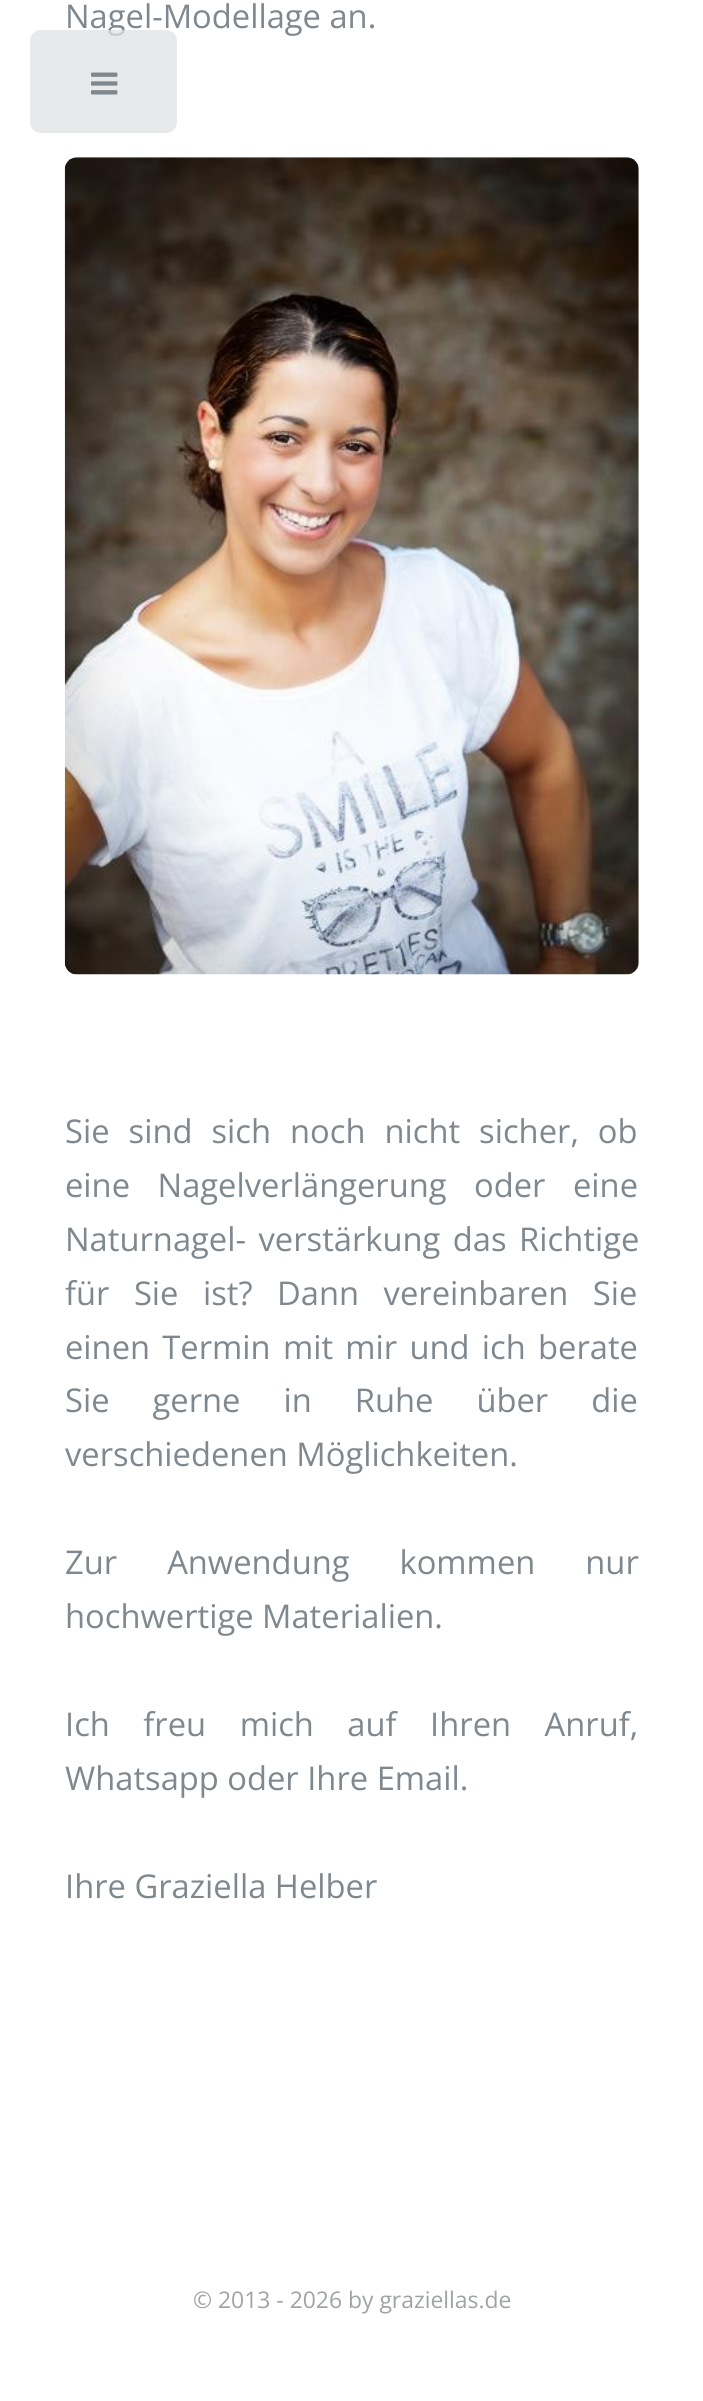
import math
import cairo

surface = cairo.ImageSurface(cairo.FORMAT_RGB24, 703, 2401)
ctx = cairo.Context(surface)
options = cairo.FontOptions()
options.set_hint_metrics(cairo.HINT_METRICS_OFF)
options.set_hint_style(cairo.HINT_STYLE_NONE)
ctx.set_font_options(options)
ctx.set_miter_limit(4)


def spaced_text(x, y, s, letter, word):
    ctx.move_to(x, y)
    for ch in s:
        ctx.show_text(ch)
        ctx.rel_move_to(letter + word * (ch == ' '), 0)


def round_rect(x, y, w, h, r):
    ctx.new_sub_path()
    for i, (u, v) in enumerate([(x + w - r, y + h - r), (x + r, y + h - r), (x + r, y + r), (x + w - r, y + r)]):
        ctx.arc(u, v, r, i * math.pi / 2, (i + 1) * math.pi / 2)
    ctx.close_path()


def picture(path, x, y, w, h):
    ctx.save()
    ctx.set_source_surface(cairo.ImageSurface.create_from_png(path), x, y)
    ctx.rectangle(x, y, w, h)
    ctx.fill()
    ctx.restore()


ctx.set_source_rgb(1, 1, 1)
ctx.paint()
ctx.select_font_face("Open Sans")
ctx.set_font_size(32.7)
ctx.set_source_rgb(0.498, 0.533, 0.561)
ctx.move_to(65, 28)
ctx.show_text("Nagel-Modellage an.")
picture("img1.png", 64, 157, 575, 818)
spaced_text(65, 1143, "Sie sind sich noch nicht sicher, ob", 0, 10.5)
spaced_text(65, 1197, "eine Nagelverlängerung oder eine", 0, 19)
spaced_text(65, 1251, "Naturnagel- verstärkung das Richtige", 0, 4)
spaced_text(65, 1305, "für Sie ist? Dann vereinbaren Sie", 0, 16)
spaced_text(65, 1359, "einen Termin mit mir und ich berate", 0, 3.75)
spaced_text(65, 1412, "Sie gerne in Ruhe über die", 0, 34.5)
ctx.move_to(65, 1466)
ctx.show_text("verschiedenen Möglichkeiten.")
spaced_text(65, 1574, "Zur Anwendung kommen nur", 0, 41.5)
ctx.move_to(65, 1628)
ctx.show_text("hochwertige Materialien.")
spaced_text(65, 1736, "Ich freu mich auf Ihren Anruf,", 0, 25)
ctx.move_to(65, 1790)
ctx.show_text("Whatsapp oder Ihre Email.")
ctx.move_to(65, 1898)
ctx.show_text("Ihre Graziella Helber")
ctx.set_font_size(22.9)
ctx.set_source_rgb(0.624, 0.639, 0.651)
ctx.move_to(193, 2308)
ctx.show_text("© 2013 - 2026 by graziellas.de")
ctx.set_source_rgba(0.871, 0.882, 0.886, 0.75)
round_rect(30, 30, 147, 103, 11)
ctx.fill()
picture("img2.png", 91, 72, 27, 23)
surface.write_to_png("page.png")
